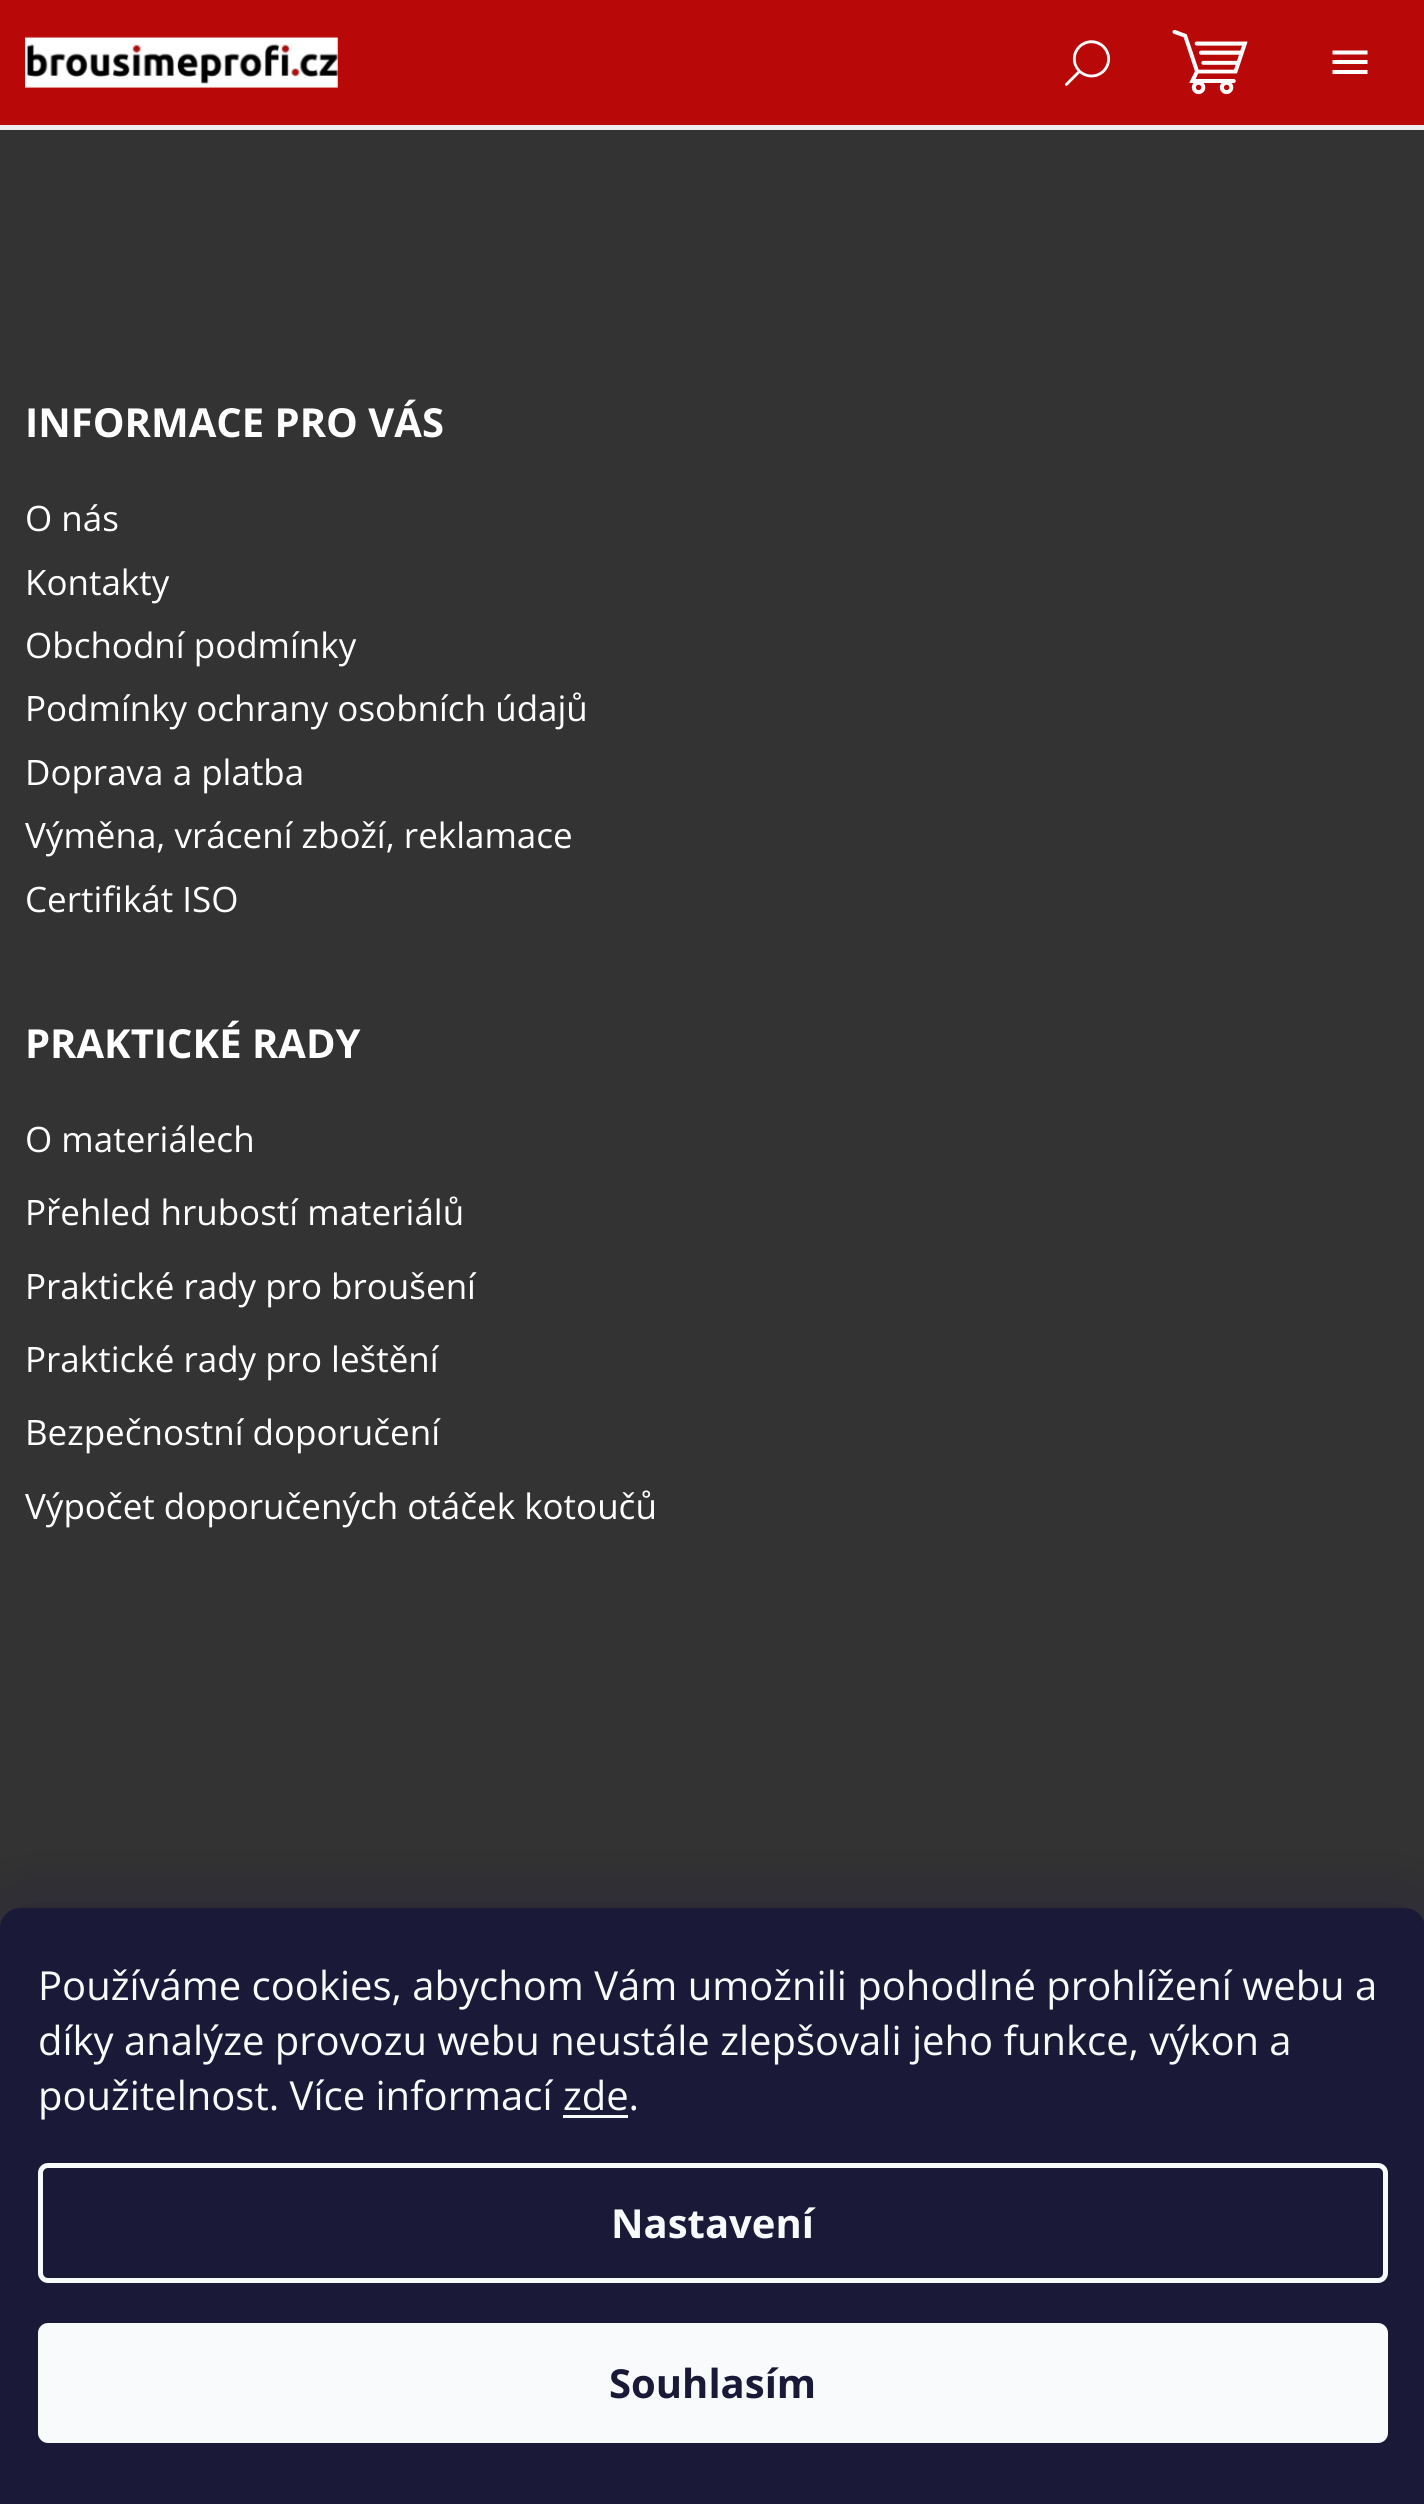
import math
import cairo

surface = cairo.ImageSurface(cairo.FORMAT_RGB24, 1424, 2504)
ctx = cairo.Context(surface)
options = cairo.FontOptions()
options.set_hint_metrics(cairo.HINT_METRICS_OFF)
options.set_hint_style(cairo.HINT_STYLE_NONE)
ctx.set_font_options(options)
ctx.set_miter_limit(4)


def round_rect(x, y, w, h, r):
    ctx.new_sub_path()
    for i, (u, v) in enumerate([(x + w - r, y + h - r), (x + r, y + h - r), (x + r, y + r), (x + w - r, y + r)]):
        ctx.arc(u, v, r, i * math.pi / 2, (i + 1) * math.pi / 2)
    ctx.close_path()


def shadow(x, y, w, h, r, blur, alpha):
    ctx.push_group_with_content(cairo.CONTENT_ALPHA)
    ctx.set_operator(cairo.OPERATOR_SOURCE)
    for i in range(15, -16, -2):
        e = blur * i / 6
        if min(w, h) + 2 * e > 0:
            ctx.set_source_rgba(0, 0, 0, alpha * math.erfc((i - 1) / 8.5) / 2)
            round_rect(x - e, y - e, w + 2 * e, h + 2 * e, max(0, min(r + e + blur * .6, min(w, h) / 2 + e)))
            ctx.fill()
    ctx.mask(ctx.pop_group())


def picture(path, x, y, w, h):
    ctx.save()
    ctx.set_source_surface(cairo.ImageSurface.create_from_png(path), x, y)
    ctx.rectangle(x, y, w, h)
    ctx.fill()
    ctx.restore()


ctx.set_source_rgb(0.2, 0.2, 0.2)
ctx.paint()
ctx.set_source_rgb(0.725, 0.035, 0.035)
ctx.rectangle(0, 0, 1424, 125)
ctx.fill()
ctx.set_source_rgb(0.929, 0.929, 0.929)
ctx.rectangle(0, 125, 1424, 5)
ctx.fill()
picture("img1.png", 1065, 40, 45, 46)
ctx.set_source_rgb(1, 1, 1)
ctx.new_path()
ctx.move_to(1332.5, 74)
ctx.line_to(1367.5, 74)
ctx.line_to(1367.5, 70)
ctx.line_to(1332.5, 70)
ctx.close_path()
ctx.move_to(1332.5, 64)
ctx.line_to(1367.5, 64)
ctx.line_to(1367.5, 60)
ctx.line_to(1332.5, 60)
ctx.close_path()
ctx.move_to(1332.5, 50.5)
ctx.line_to(1332.5, 54.5)
ctx.line_to(1367.5, 54.5)
ctx.line_to(1367.5, 50.5)
ctx.close_path()
ctx.fill()
picture("img2.png", 25, 36, 313, 52)
picture("img3.png", 1172, 29, 76, 66)
ctx.select_font_face("Open Sans", cairo.FONT_SLANT_NORMAL, cairo.FONT_WEIGHT_BOLD)
ctx.set_font_size(40)
ctx.move_to(25, 437)
ctx.show_text("INFORMACE PRO VÁS")
ctx.select_font_face("Open Sans")
ctx.set_font_size(35)
ctx.move_to(25, 531)
ctx.show_text("O nás")
ctx.move_to(25, 595)
ctx.show_text("Kontakty")
ctx.move_to(25, 658)
ctx.show_text("Obchodní podmínky")
ctx.move_to(25, 721)
ctx.show_text("Podmínky ochrany osobních údajů")
ctx.move_to(25, 785)
ctx.show_text("Doprava a platba")
ctx.move_to(25, 848)
ctx.show_text("Výměna, vrácení zboží, reklamace")
ctx.move_to(25, 912)
ctx.show_text("Certifikát ISO")
ctx.select_font_face("Open Sans", cairo.FONT_SLANT_NORMAL, cairo.FONT_WEIGHT_BOLD)
ctx.set_font_size(40)
ctx.move_to(25, 1058)
ctx.show_text("PRAKTICKÉ RADY")
ctx.select_font_face("Open Sans")
ctx.set_font_size(35)
ctx.move_to(25, 1152)
ctx.show_text("O materiálech")
ctx.move_to(25, 1225)
ctx.show_text("Přehled hrubostí materiálů")
ctx.move_to(25, 1299)
ctx.show_text("Praktické rady pro broušení")
ctx.move_to(25, 1372)
ctx.show_text("Praktické rady pro leštění")
ctx.move_to(25, 1445)
ctx.show_text("Bezpečnostní doporučení")
ctx.move_to(25, 1519)
ctx.show_text("Výpočet doporučených otáček kotoučů")
ctx.set_source_rgb(0.106, 0.098, 0.224)
shadow(0, 1908, 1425, 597, 20, 37.5, 0.5)
ctx.set_source_rgb(0.102, 0.098, 0.216)
ctx.new_path()
ctx.move_to(20, 1908)
ctx.line_to(1405, 1908)
ctx.curve_to(1416, 1908, 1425, 1917, 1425, 1928)
ctx.line_to(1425, 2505)
ctx.line_to(0, 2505)
ctx.line_to(0, 1928)
ctx.curve_to(0, 1917, 9, 1908, 20, 1908)
ctx.close_path()
ctx.fill()
ctx.set_font_size(40)
ctx.set_source_rgb(0.973, 0.98, 0.984)
ctx.move_to(38, 2000)
ctx.show_text("Používáme cookies, abychom Vám umožnili pohodlné prohlížení webu a")
ctx.move_to(38, 2055)
ctx.show_text("díky analýze provozu webu neustále zlepšovali jeho funkce, výkon a")
ctx.move_to(38, 2110)
ctx.show_text("použitelnost. Více informací zde.")
ctx.rectangle(563, 2115, 65, 3)
ctx.fill()
round_rect(40.5, 2165.5, 1345, 115, 7.5)
ctx.set_line_width(5)
ctx.stroke()
ctx.select_font_face("Open Sans", cairo.FONT_SLANT_NORMAL, cairo.FONT_WEIGHT_BOLD)
ctx.move_to(611, 2238)
ctx.show_text("Nastavení")
round_rect(38, 2323, 1350, 120, 10)
ctx.fill()
ctx.set_source_rgb(0.102, 0.098, 0.216)
ctx.move_to(609, 2398)
ctx.show_text("Souhlasím")
surface.write_to_png("page.png")
